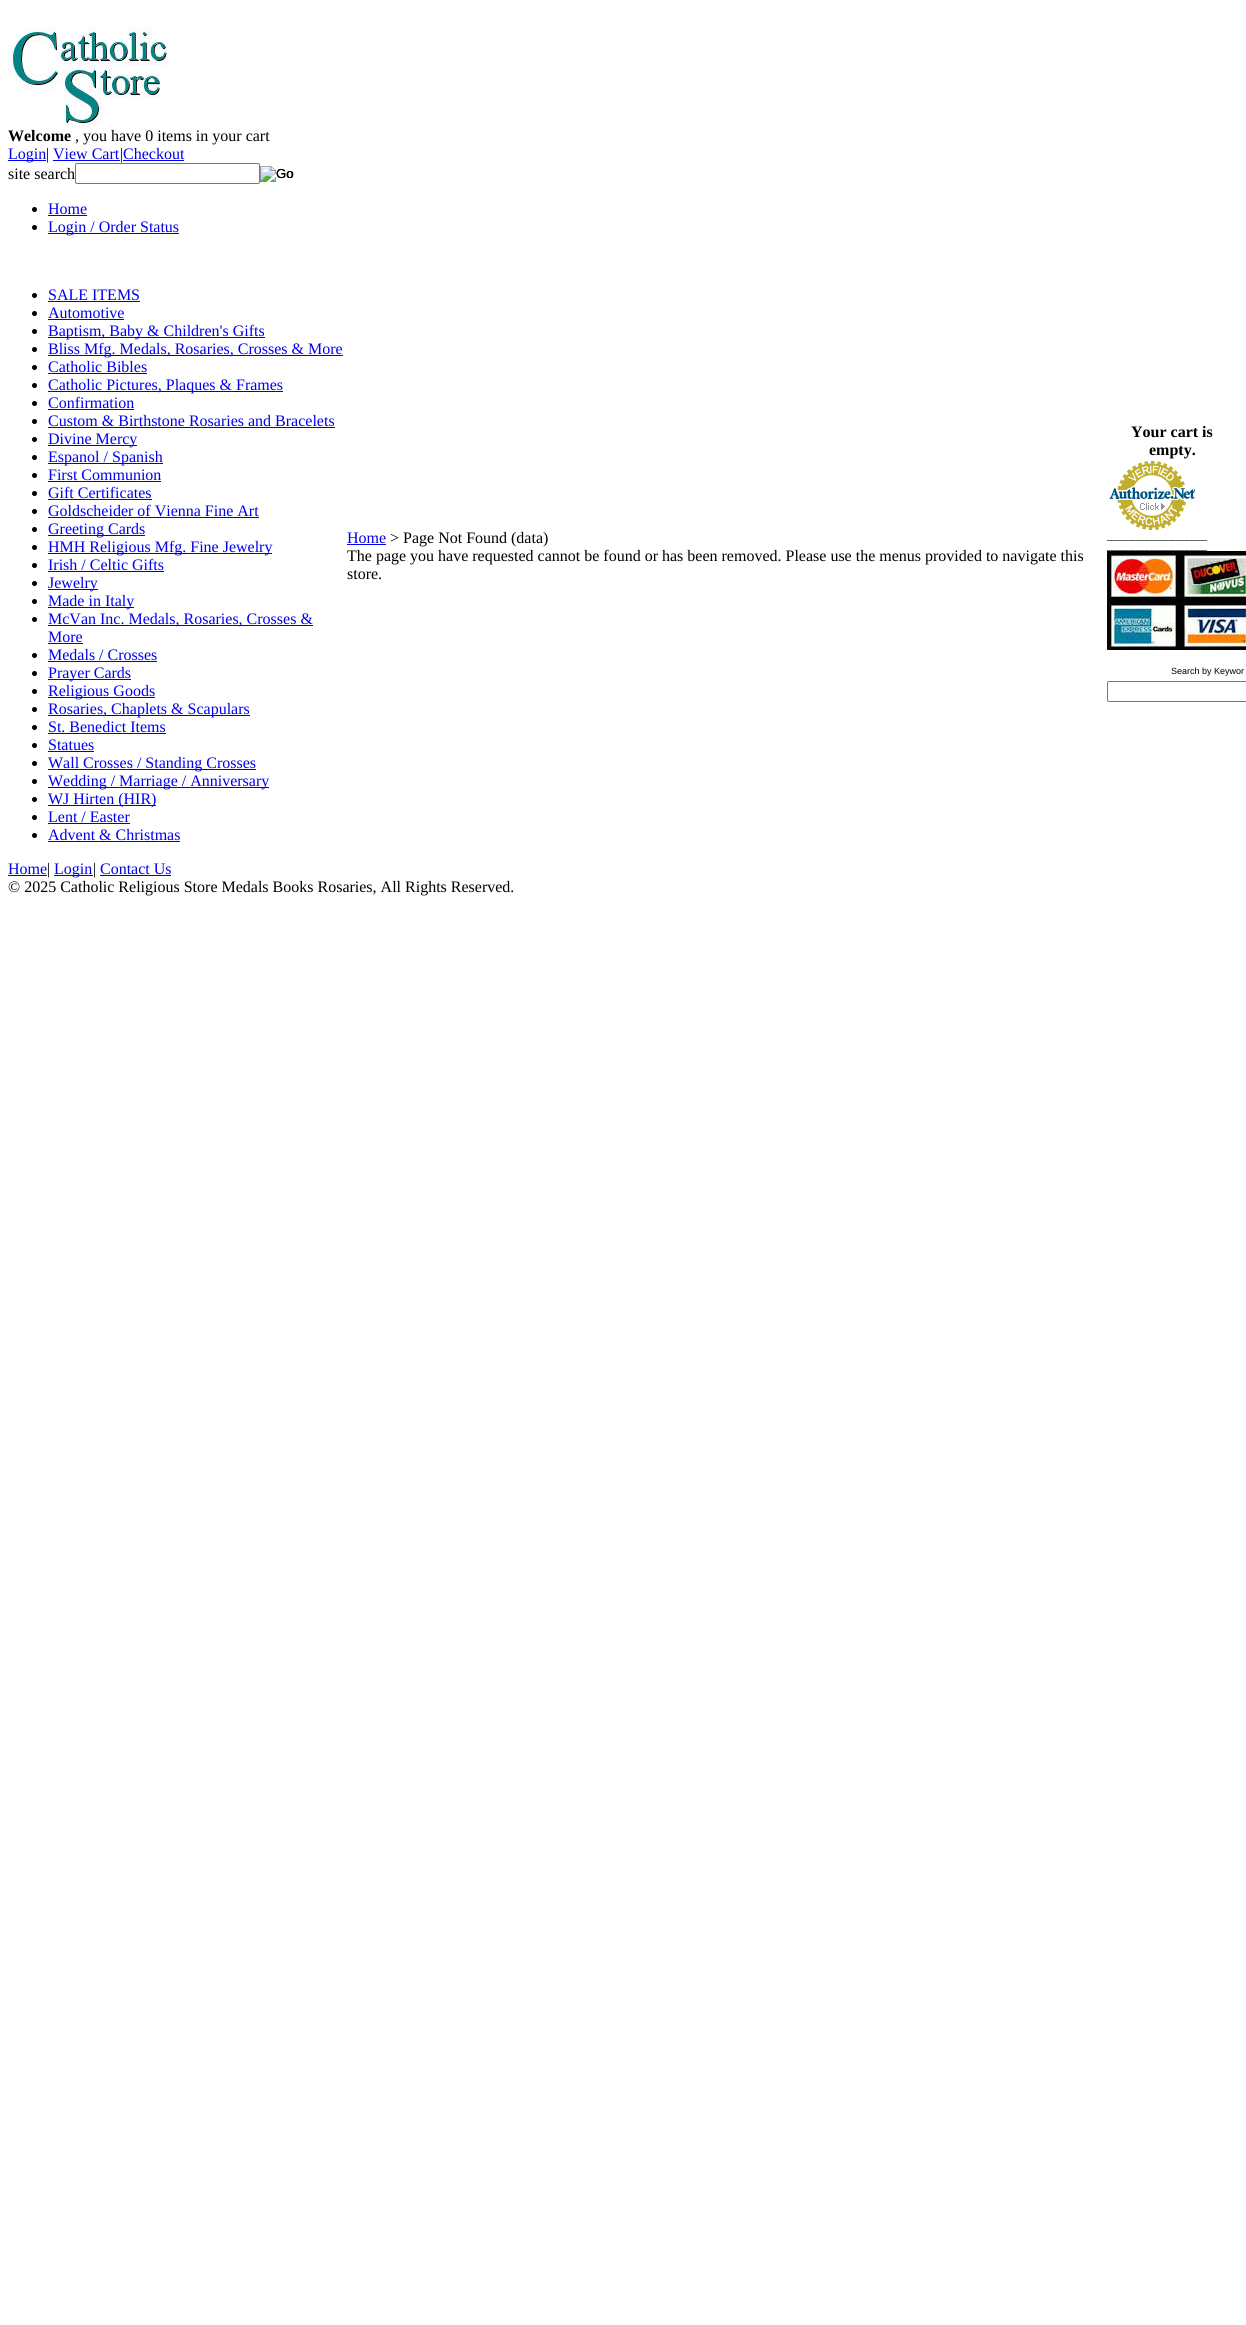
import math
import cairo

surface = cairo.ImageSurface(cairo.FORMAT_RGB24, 1246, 2325)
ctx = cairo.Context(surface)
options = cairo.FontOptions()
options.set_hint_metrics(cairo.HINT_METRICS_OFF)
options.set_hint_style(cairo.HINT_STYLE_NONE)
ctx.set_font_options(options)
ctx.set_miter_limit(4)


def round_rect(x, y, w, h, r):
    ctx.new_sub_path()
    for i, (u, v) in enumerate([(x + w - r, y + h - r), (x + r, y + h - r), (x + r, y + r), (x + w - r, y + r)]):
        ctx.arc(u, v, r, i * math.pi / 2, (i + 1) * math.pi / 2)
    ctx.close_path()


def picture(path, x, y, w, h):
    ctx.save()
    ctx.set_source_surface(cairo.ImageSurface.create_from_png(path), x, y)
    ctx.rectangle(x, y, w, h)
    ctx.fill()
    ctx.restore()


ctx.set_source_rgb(1, 1, 1)
ctx.paint()
picture("img1.png", 8, 26, 160, 101)
ctx.select_font_face("Liberation Serif", cairo.FONT_SLANT_NORMAL, cairo.FONT_WEIGHT_BOLD)
ctx.set_font_size(16)
ctx.set_source_rgb(0, 0, 0)
ctx.move_to(8, 141)
ctx.show_text("Welcome")
ctx.select_font_face("Liberation Serif")
ctx.move_to(75, 141)
ctx.show_text(", you have 0 items in your cart")
ctx.set_source_rgb(0, 0, 0.933)
ctx.rectangle(8, 160, 38, 1)
ctx.fill()
ctx.move_to(8, 159)
ctx.show_text("Login")
ctx.set_source_rgb(0, 0, 0)
ctx.move_to(46, 159)
ctx.show_text("|")
ctx.set_source_rgb(0, 0, 0.933)
ctx.move_to(53, 159)
ctx.show_text("View Cart")
ctx.rectangle(53, 160, 67, 1)
ctx.fill()
ctx.set_source_rgb(0, 0, 0)
ctx.move_to(120, 159)
ctx.show_text("|")
ctx.set_source_rgb(0, 0, 0.933)
ctx.move_to(123, 159)
ctx.show_text("Checkout")
ctx.rectangle(123, 160, 61, 1)
ctx.fill()
ctx.set_source_rgb(0, 0, 0)
ctx.move_to(8, 179)
ctx.show_text("site search")
round_rect(75.5, 163.5, 184, 20, 1.5)
ctx.set_source_rgb(0.463, 0.463, 0.463)
ctx.set_line_width(1)
ctx.stroke()
picture("img2.png", 260, 166, 34, 16)
ctx.select_font_face("Liberation Sans")
ctx.set_font_size(13)
ctx.set_source_rgb(0, 0, 0)
ctx.move_to(276, 178)
ctx.show_text("Go")
ctx.new_path()
ctx.arc(34.5, 209.5, 2.5, 0, 2 * math.pi)
ctx.fill()
ctx.select_font_face("Liberation Serif")
ctx.set_font_size(16)
ctx.set_source_rgb(0, 0, 0.933)
ctx.move_to(48, 214)
ctx.show_text("Home")
ctx.rectangle(48, 215, 39, 1)
ctx.fill()
ctx.set_source_rgb(0, 0, 0)
ctx.arc(34.5, 227.5, 2.5, 0, 2 * math.pi)
ctx.fill()
ctx.set_source_rgb(0, 0, 0.933)
ctx.rectangle(48, 233, 131, 1)
ctx.fill()
ctx.move_to(48, 232)
ctx.show_text("Login / Order Status")
ctx.set_source_rgb(0, 0, 0)
ctx.new_path()
ctx.arc(34.5, 295.5, 2.5, 0, 2 * math.pi)
ctx.fill()
ctx.set_source_rgb(0, 0, 0.933)
ctx.move_to(48, 300)
ctx.show_text("SALE ITEMS")
ctx.rectangle(48, 301, 92, 1)
ctx.fill()
ctx.set_source_rgb(0, 0, 0)
ctx.arc(34.5, 313.5, 2.5, 0, 2 * math.pi)
ctx.fill()
ctx.set_source_rgb(0, 0, 0.933)
ctx.move_to(48, 318)
ctx.show_text("Automotive")
ctx.rectangle(48, 319, 76, 1)
ctx.fill()
ctx.set_source_rgb(0, 0, 0)
ctx.arc(34.5, 331.5, 2.5, 0, 2 * math.pi)
ctx.fill()
ctx.set_source_rgb(0, 0, 0.933)
ctx.rectangle(48, 337, 217, 1)
ctx.fill()
ctx.move_to(48, 336)
ctx.show_text("Baptism, Baby & Children's Gifts")
ctx.set_source_rgb(0, 0, 0)
ctx.new_path()
ctx.arc(34.5, 349.5, 2.5, 0, 2 * math.pi)
ctx.fill()
ctx.set_source_rgb(0, 0, 0.933)
ctx.rectangle(48, 355, 295, 1)
ctx.fill()
ctx.move_to(48, 354)
ctx.show_text("Bliss Mfg. Medals, Rosaries, Crosses & More")
ctx.set_source_rgb(0, 0, 0)
ctx.new_path()
ctx.arc(34.5, 367.5, 2.5, 0, 2 * math.pi)
ctx.fill()
ctx.set_source_rgb(0, 0, 0.933)
ctx.move_to(48, 372)
ctx.show_text("Catholic Bibles")
ctx.rectangle(48, 373, 99, 1)
ctx.fill()
ctx.set_source_rgb(0, 0, 0)
ctx.arc(34.5, 385.5, 2.5, 0, 2 * math.pi)
ctx.fill()
ctx.set_source_rgb(0, 0, 0.933)
ctx.rectangle(48, 391, 235, 1)
ctx.fill()
ctx.move_to(48, 390)
ctx.show_text("Catholic Pictures, Plaques & Frames")
ctx.set_source_rgb(0, 0, 0)
ctx.new_path()
ctx.arc(34.5, 403.5, 2.5, 0, 2 * math.pi)
ctx.fill()
ctx.set_source_rgb(0, 0, 0.933)
ctx.move_to(48, 408)
ctx.show_text("Confirmation")
ctx.rectangle(48, 409, 86, 1)
ctx.fill()
ctx.set_source_rgb(0, 0, 0)
ctx.arc(34.5, 421.5, 2.5, 0, 2 * math.pi)
ctx.fill()
ctx.set_source_rgb(0, 0, 0.933)
ctx.move_to(48, 426)
ctx.show_text("Custom & Birthstone Rosaries and Bracelets")
ctx.rectangle(48, 427, 287, 1)
ctx.fill()
ctx.set_source_rgb(0, 0, 0)
ctx.arc(34.5, 439.5, 2.5, 0, 2 * math.pi)
ctx.fill()
ctx.set_source_rgb(0, 0, 0.933)
ctx.rectangle(48, 445, 89, 1)
ctx.fill()
ctx.move_to(48, 444)
ctx.show_text("Divine Mercy")
ctx.set_source_rgb(0, 0, 0)
ctx.new_path()
ctx.arc(34.5, 457.5, 2.5, 0, 2 * math.pi)
ctx.fill()
ctx.set_source_rgb(0, 0, 0.933)
ctx.rectangle(48, 463, 115, 1)
ctx.fill()
ctx.move_to(48, 462)
ctx.show_text("Espanol / Spanish")
ctx.set_source_rgb(0, 0, 0)
ctx.new_path()
ctx.arc(34.5, 475.5, 2.5, 0, 2 * math.pi)
ctx.fill()
ctx.set_source_rgb(0, 0, 0.933)
ctx.move_to(48, 480)
ctx.show_text("First Communion")
ctx.rectangle(48, 481, 113, 1)
ctx.fill()
ctx.set_source_rgb(0, 0, 0)
ctx.arc(34.5, 493.5, 2.5, 0, 2 * math.pi)
ctx.fill()
ctx.set_source_rgb(0, 0, 0.933)
ctx.move_to(48, 498)
ctx.show_text("Gift Certificates")
ctx.rectangle(48, 499, 104, 1)
ctx.fill()
ctx.set_source_rgb(0, 0, 0)
ctx.arc(34.5, 511.5, 2.5, 0, 2 * math.pi)
ctx.fill()
ctx.set_source_rgb(0, 0, 0.933)
ctx.move_to(48, 516)
ctx.show_text("Goldscheider of Vienna Fine Art")
ctx.rectangle(48, 517, 211, 1)
ctx.fill()
ctx.set_source_rgb(0, 0, 0)
ctx.arc(34.5, 529.5, 2.5, 0, 2 * math.pi)
ctx.fill()
ctx.set_source_rgb(0, 0, 0.933)
ctx.rectangle(48, 535, 97, 1)
ctx.fill()
ctx.move_to(48, 534)
ctx.show_text("Greeting Cards")
ctx.set_source_rgb(0, 0, 0)
ctx.new_path()
ctx.arc(34.5, 547.5, 2.5, 0, 2 * math.pi)
ctx.fill()
ctx.set_source_rgb(0, 0, 0.933)
ctx.rectangle(48, 553, 224, 1)
ctx.fill()
ctx.move_to(48, 552)
ctx.show_text("HMH Religious Mfg. Fine Jewelry")
ctx.set_source_rgb(0, 0, 0)
ctx.new_path()
ctx.arc(34.5, 565.5, 2.5, 0, 2 * math.pi)
ctx.fill()
ctx.set_source_rgb(0, 0, 0.933)
ctx.move_to(48, 570)
ctx.show_text("Irish / Celtic Gifts")
ctx.rectangle(48, 571, 116, 1)
ctx.fill()
ctx.set_source_rgb(0, 0, 0)
ctx.arc(34.5, 583.5, 2.5, 0, 2 * math.pi)
ctx.fill()
ctx.set_source_rgb(0, 0, 0.933)
ctx.rectangle(48, 589, 50, 1)
ctx.fill()
ctx.move_to(48, 588)
ctx.show_text("Jewelry")
ctx.set_source_rgb(0, 0, 0)
ctx.new_path()
ctx.arc(34.5, 601.5, 2.5, 0, 2 * math.pi)
ctx.fill()
ctx.set_source_rgb(0, 0, 0.933)
ctx.rectangle(48, 607, 86, 1)
ctx.fill()
ctx.move_to(48, 606)
ctx.show_text("Made in Italy")
ctx.set_source_rgb(0, 0, 0)
ctx.new_path()
ctx.arc(34.5, 619.5, 2.5, 0, 2 * math.pi)
ctx.fill()
ctx.set_source_rgb(0, 0, 0.933)
ctx.rectangle(48, 625, 265, 1)
ctx.fill()
ctx.move_to(48, 624)
ctx.show_text("McVan Inc. Medals, Rosaries, Crosses &")
ctx.move_to(48, 642)
ctx.show_text("More")
ctx.rectangle(48, 643, 35, 1)
ctx.fill()
ctx.set_source_rgb(0, 0, 0)
ctx.arc(34.5, 655.5, 2.5, 0, 2 * math.pi)
ctx.fill()
ctx.set_source_rgb(0, 0, 0.933)
ctx.move_to(48, 660)
ctx.show_text("Medals / Crosses")
ctx.rectangle(48, 661, 109, 1)
ctx.fill()
ctx.set_source_rgb(0, 0, 0)
ctx.arc(34.5, 673.5, 2.5, 0, 2 * math.pi)
ctx.fill()
ctx.set_source_rgb(0, 0, 0.933)
ctx.rectangle(48, 679, 83, 1)
ctx.fill()
ctx.move_to(48, 678)
ctx.show_text("Prayer Cards")
ctx.set_source_rgb(0, 0, 0)
ctx.new_path()
ctx.arc(34.5, 691.5, 2.5, 0, 2 * math.pi)
ctx.fill()
ctx.set_source_rgb(0, 0, 0.933)
ctx.rectangle(48, 697, 107, 1)
ctx.fill()
ctx.move_to(48, 696)
ctx.show_text("Religious Goods")
ctx.set_source_rgb(0, 0, 0)
ctx.new_path()
ctx.arc(34.5, 709.5, 2.5, 0, 2 * math.pi)
ctx.fill()
ctx.set_source_rgb(0, 0, 0.933)
ctx.rectangle(48, 715, 202, 1)
ctx.fill()
ctx.move_to(48, 714)
ctx.show_text("Rosaries, Chaplets & Scapulars")
ctx.set_source_rgb(0, 0, 0)
ctx.new_path()
ctx.arc(34.5, 727.5, 2.5, 0, 2 * math.pi)
ctx.fill()
ctx.set_source_rgb(0, 0, 0.933)
ctx.move_to(48, 732)
ctx.show_text("St. Benedict Items")
ctx.rectangle(48, 733, 118, 1)
ctx.fill()
ctx.set_source_rgb(0, 0, 0)
ctx.arc(34.5, 745.5, 2.5, 0, 2 * math.pi)
ctx.fill()
ctx.set_source_rgb(0, 0, 0.933)
ctx.move_to(48, 750)
ctx.show_text("Statues")
ctx.rectangle(48, 751, 46, 1)
ctx.fill()
ctx.set_source_rgb(0, 0, 0)
ctx.arc(34.5, 763.5, 2.5, 0, 2 * math.pi)
ctx.fill()
ctx.set_source_rgb(0, 0, 0.933)
ctx.rectangle(48, 769, 208, 1)
ctx.fill()
ctx.move_to(48, 768)
ctx.show_text("Wall Crosses / Standing Crosses")
ctx.set_source_rgb(0, 0, 0)
ctx.new_path()
ctx.arc(34.5, 781.5, 2.5, 0, 2 * math.pi)
ctx.fill()
ctx.set_source_rgb(0, 0, 0.933)
ctx.rectangle(48, 787, 221, 1)
ctx.fill()
ctx.move_to(48, 786)
ctx.show_text("Wedding / Marriage / Anniversary")
ctx.set_source_rgb(0, 0, 0)
ctx.new_path()
ctx.arc(34.5, 799.5, 2.5, 0, 2 * math.pi)
ctx.fill()
ctx.set_source_rgb(0, 0, 0.933)
ctx.rectangle(48, 805, 108, 1)
ctx.fill()
ctx.move_to(48, 804)
ctx.show_text("WJ Hirten (HIR)")
ctx.set_source_rgb(0, 0, 0)
ctx.new_path()
ctx.arc(34.5, 817.5, 2.5, 0, 2 * math.pi)
ctx.fill()
ctx.set_source_rgb(0, 0, 0.933)
ctx.move_to(48, 822)
ctx.show_text("Lent / Easter")
ctx.rectangle(48, 823, 82, 1)
ctx.fill()
ctx.set_source_rgb(0, 0, 0)
ctx.arc(34.5, 835.5, 2.5, 0, 2 * math.pi)
ctx.fill()
ctx.set_source_rgb(0, 0, 0.933)
ctx.move_to(48, 840)
ctx.show_text("Advent & Christmas")
ctx.rectangle(48, 841, 132, 1)
ctx.fill()
ctx.move_to(347, 543)
ctx.show_text("Home")
ctx.rectangle(347, 544, 39, 1)
ctx.fill()
ctx.set_source_rgb(0, 0, 0)
ctx.move_to(390, 543)
ctx.show_text("> Page Not Found (data)")
ctx.move_to(347, 561)
ctx.show_text("The page you have requested cannot be found or has been removed. Please use the menus provided to navigate this")
ctx.move_to(347, 579)
ctx.show_text("store.")
ctx.select_font_face("Liberation Serif", cairo.FONT_SLANT_NORMAL, cairo.FONT_WEIGHT_BOLD)
ctx.move_to(1131, 437)
ctx.show_text("Your cart is")
ctx.move_to(1149, 455)
ctx.show_text("empty.")
picture("img3.png", 1109, 461, 86, 69)
ctx.select_font_face("Liberation Sans")
ctx.set_font_size(9)
ctx.move_to(1107, 539)
ctx.show_text("____________________")
ctx.move_to(1107, 549)
ctx.show_text("____________________")
picture("img4.png", 1107, 551, 139, 99)
ctx.move_to(1171, 674)
ctx.show_text("Search by Keywor")
round_rect(1107.5, 681.5, 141, 20, 1.5)
ctx.set_source_rgb(0.463, 0.463, 0.463)
ctx.stroke()
ctx.select_font_face("Liberation Serif")
ctx.set_font_size(16)
ctx.set_source_rgb(0, 0, 0.933)
ctx.move_to(8, 874)
ctx.show_text("Home")
ctx.rectangle(8, 875, 39, 1)
ctx.fill()
ctx.set_source_rgb(0, 0, 0)
ctx.move_to(47, 874)
ctx.show_text("|")
ctx.set_source_rgb(0, 0, 0.933)
ctx.rectangle(54, 875, 39, 1)
ctx.fill()
ctx.move_to(54, 874)
ctx.show_text("Login")
ctx.set_source_rgb(0, 0, 0)
ctx.move_to(93, 874)
ctx.show_text("|")
ctx.set_source_rgb(0, 0, 0.933)
ctx.move_to(100, 874)
ctx.show_text("Contact Us")
ctx.rectangle(100, 875, 71, 1)
ctx.fill()
ctx.set_source_rgb(0, 0, 0)
ctx.move_to(8, 892)
ctx.show_text("© 2025 Catholic Religious Store Medals Books Rosaries, All Rights Reserved.")
surface.write_to_png("page.png")
